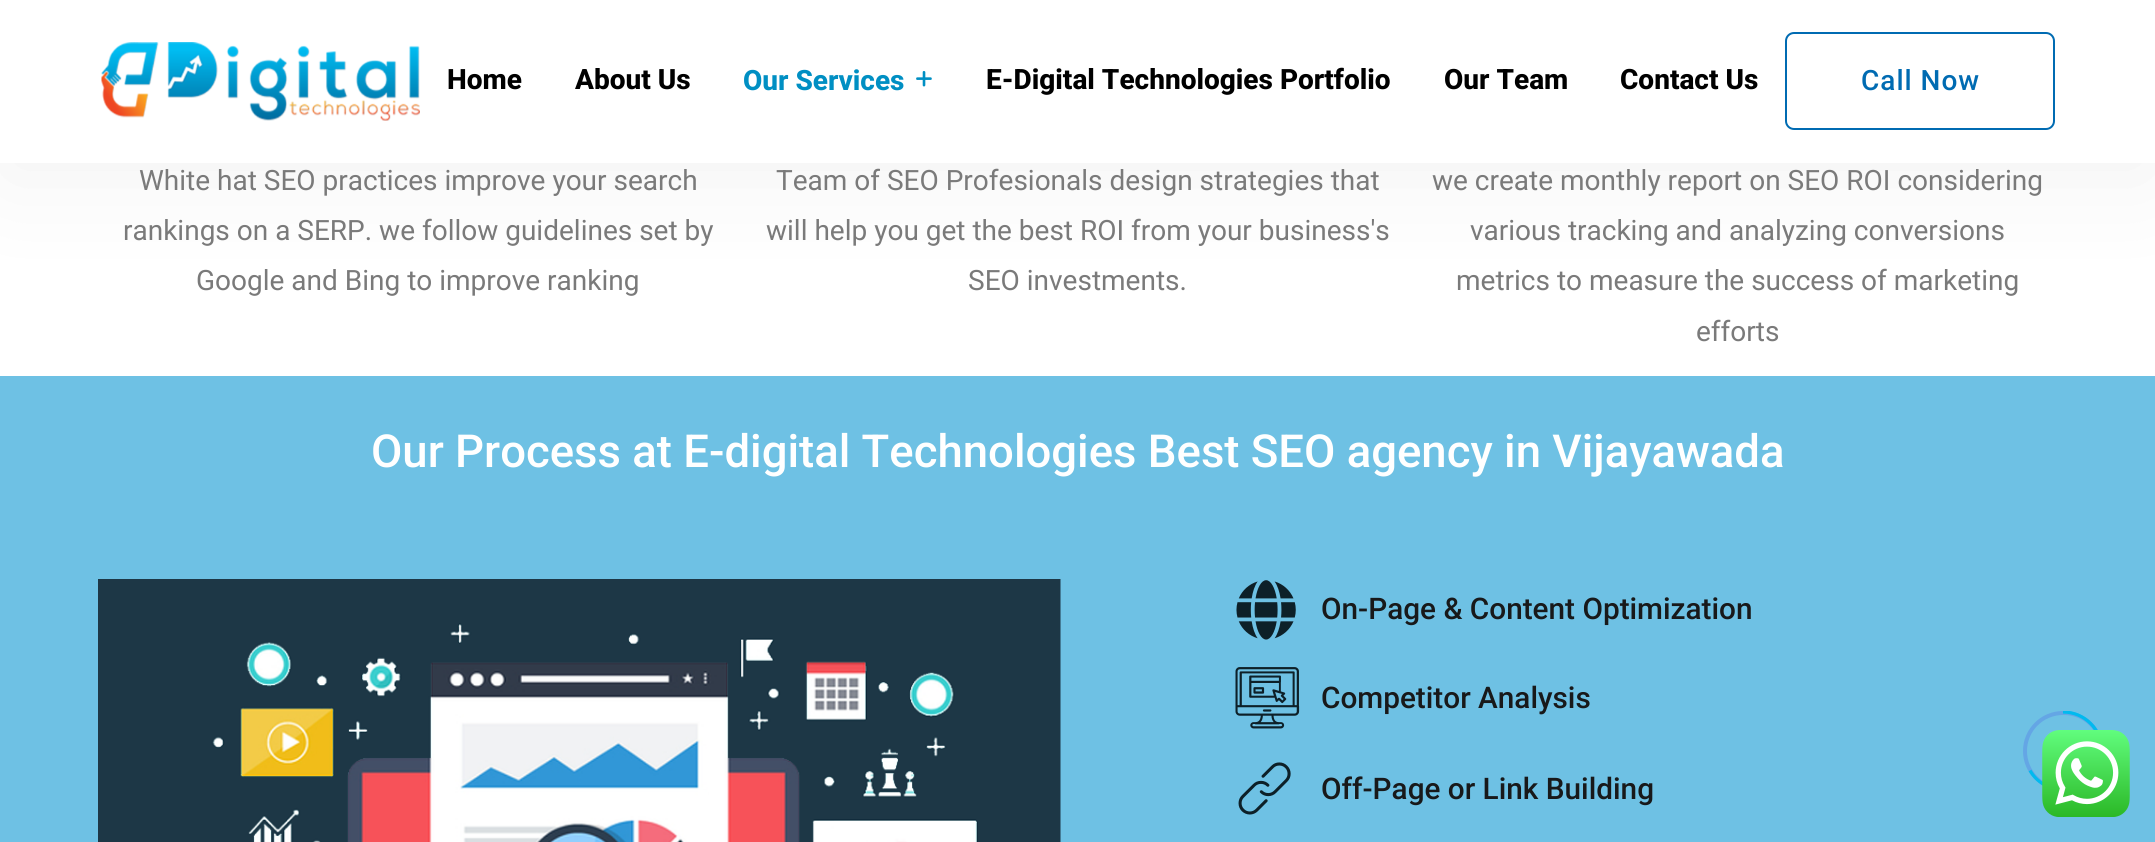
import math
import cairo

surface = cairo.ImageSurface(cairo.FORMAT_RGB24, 2155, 842)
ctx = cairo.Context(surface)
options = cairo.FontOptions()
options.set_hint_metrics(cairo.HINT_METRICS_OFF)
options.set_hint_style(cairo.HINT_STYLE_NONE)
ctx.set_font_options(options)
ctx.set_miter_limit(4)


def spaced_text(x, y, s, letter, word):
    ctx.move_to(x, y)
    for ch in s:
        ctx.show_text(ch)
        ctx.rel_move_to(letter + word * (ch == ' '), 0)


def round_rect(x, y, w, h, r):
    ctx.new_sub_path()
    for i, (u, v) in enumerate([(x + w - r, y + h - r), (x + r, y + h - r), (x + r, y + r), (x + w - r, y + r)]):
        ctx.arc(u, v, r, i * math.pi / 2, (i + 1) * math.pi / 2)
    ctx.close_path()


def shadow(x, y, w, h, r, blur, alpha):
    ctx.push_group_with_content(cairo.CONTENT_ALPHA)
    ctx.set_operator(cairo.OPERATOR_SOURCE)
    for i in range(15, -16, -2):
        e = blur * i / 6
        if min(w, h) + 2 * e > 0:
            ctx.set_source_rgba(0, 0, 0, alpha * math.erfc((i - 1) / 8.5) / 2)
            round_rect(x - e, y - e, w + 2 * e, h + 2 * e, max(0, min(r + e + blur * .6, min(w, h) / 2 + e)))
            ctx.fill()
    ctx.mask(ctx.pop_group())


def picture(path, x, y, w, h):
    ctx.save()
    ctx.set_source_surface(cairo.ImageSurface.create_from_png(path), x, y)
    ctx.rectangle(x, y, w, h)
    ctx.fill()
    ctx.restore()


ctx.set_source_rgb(1, 1, 1)
ctx.paint()
ctx.set_source_rgb(0, 0, 0)
shadow(0, 18, 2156, 162, 0, 52.5, 0.05)
ctx.set_source_rgb(1, 1, 1)
ctx.rectangle(0, 0, 2155, 163)
ctx.fill()
picture("img1.png", 101, 42, 319, 79)
ctx.select_font_face("Roboto ExtraBold")
ctx.set_font_size(28)
ctx.set_source_rgb(0, 0, 0)
ctx.move_to(447, 89)
ctx.show_text("Home")
ctx.move_to(575, 89)
ctx.show_text("About Us")
ctx.set_source_rgb(0, 0.561, 0.765)
ctx.move_to(743, 90)
ctx.show_text("Our Services")
picture("img2.png", 916, 71, 16, 16)
ctx.set_source_rgb(0, 0, 0)
ctx.move_to(986, 89)
ctx.show_text("E-Digital Technologies Portfolio")
ctx.move_to(1444, 89)
ctx.show_text("Our Team")
ctx.move_to(1620, 89)
ctx.show_text("Contact Us")
round_rect(1786, 33, 268, 96, 8)
ctx.set_source_rgb(0, 0.42, 0.698)
ctx.stroke()
ctx.select_font_face("Roboto Medium")
spaced_text(1861, 90, "Call Now", 1, 0)
ctx.select_font_face("Roboto")
ctx.set_source_rgb(0.478, 0.478, 0.478)
ctx.move_to(139, 190)
ctx.show_text("White hat SEO practices improve your search")
ctx.move_to(123, 240)
ctx.show_text("rankings on a SERP. we follow guidelines set by")
ctx.move_to(196, 290)
ctx.show_text("Google and Bing to improve ranking")
ctx.move_to(776, 190)
ctx.show_text("Team of SEO Profesionals design strategies that")
ctx.move_to(766, 240)
ctx.show_text("will help you get the best ROI from your business's")
ctx.move_to(968, 290)
ctx.show_text("SEO investments.")
ctx.move_to(1432, 190)
ctx.show_text("we create monthly report on SEO ROI considering")
ctx.move_to(1470, 240)
ctx.show_text("various tracking and analyzing conversions")
ctx.move_to(1456, 290)
ctx.show_text("metrics to measure the success of marketing")
ctx.move_to(1696, 341)
ctx.show_text("efforts")
ctx.set_source_rgb(0.431, 0.757, 0.894)
ctx.rectangle(0, 376, 2155, 466)
ctx.fill()
ctx.select_font_face("Roboto Medium")
ctx.set_font_size(45.5)
ctx.set_source_rgb(1, 1, 1)
ctx.move_to(371, 467)
ctx.show_text("Our Process at E-digital Technologies Best SEO agency in Vijayawada")
picture("img3.png", 98, 579, 963, 263)
picture("img4.png", 1236, 580, 60, 60)
ctx.set_font_size(29.75)
ctx.set_source_rgb(0.094, 0.098, 0.102)
ctx.move_to(1321, 619)
ctx.show_text("On-Page & Content Optimization")
picture("img5.png", 1235, 667, 65, 62)
ctx.move_to(1321, 708)
ctx.show_text("Competitor Analysis")
picture("img6.png", 1238, 762, 53, 53)
ctx.move_to(1321, 799)
ctx.show_text("Off-Page or Link Building")
round_rect(2025, 713, 77, 76, 38)
ctx.set_source_rgb(0.392, 0.651, 0.898)
ctx.set_line_width(4)
ctx.stroke()
ctx.save()
ctx.rectangle(2023, 711, 81, 80)
ctx.clip()
ctx.new_path()
ctx.move_to(2063, 712)
ctx.curve_to(2084.5, 712, 2102, 729.5, 2102, 751)
ctx.curve_to(2102, 772, 2084.5, 789.5, 2063, 789.5)
ctx.curve_to(2049, 789.5, 2036.5, 782, 2030, 770.5)
ctx.set_source_rgb(0, 0.729, 0.937)
ctx.set_line_width(3.2)
ctx.stroke()
ctx.restore()
picture("img7.png", 2042, 730, 88, 87)
surface.write_to_png("page.png")
